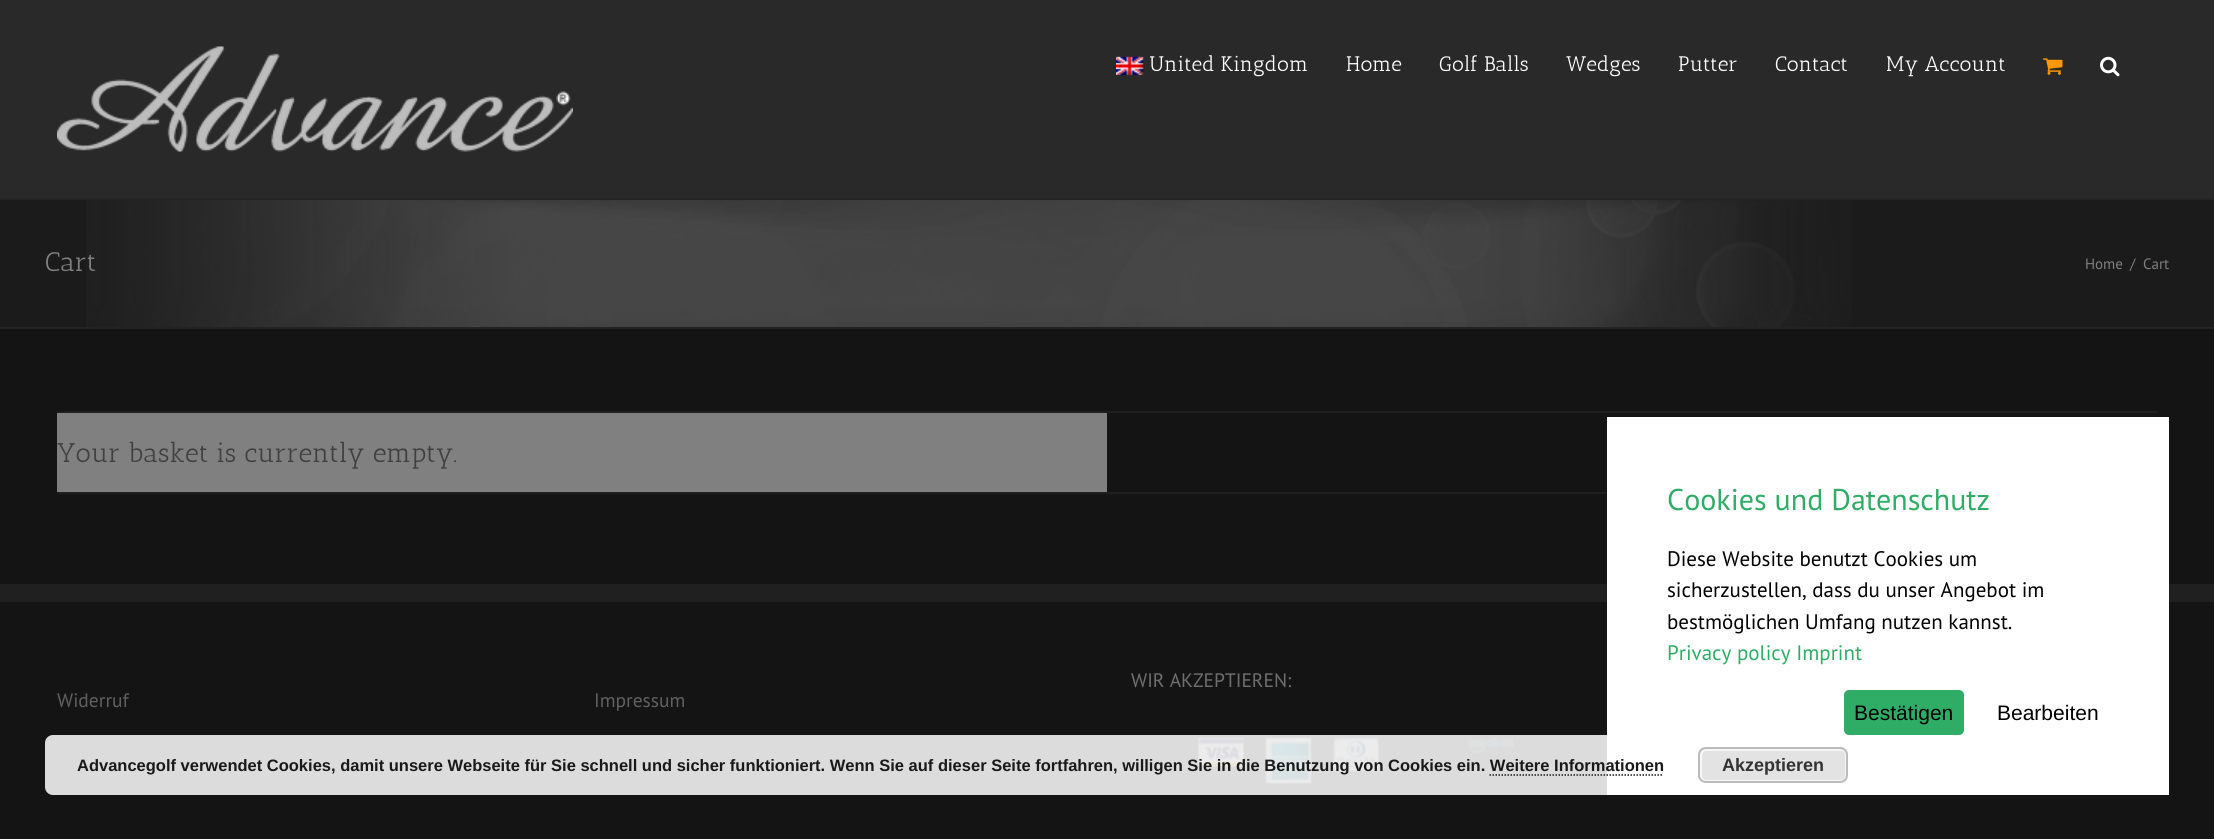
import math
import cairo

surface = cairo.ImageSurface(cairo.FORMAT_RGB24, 2214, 839)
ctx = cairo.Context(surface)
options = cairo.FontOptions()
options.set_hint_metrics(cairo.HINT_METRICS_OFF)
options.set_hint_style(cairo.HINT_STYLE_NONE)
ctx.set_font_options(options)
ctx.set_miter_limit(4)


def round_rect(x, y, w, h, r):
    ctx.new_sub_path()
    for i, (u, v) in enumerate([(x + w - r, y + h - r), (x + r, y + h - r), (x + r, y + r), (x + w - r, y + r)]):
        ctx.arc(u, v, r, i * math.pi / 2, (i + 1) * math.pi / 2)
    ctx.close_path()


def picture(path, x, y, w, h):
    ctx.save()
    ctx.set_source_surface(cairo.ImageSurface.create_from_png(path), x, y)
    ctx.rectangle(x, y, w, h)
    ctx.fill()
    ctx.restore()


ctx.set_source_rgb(0.082, 0.082, 0.082)
ctx.paint()
ctx.set_source_rgb(0.161, 0.161, 0.165)
ctx.rectangle(0, 0, 2214, 198)
ctx.fill()
picture("img1.png", 57, 46, 516, 106)
picture("img2.png", 1116, 56, 28, 19)
ctx.select_font_face("Antic Slab")
ctx.set_font_size(21)
ctx.set_source_rgb(1, 1, 1)
ctx.move_to(1149, 71)
ctx.show_text("United Kingdom")
ctx.move_to(1346, 71)
ctx.show_text("Home")
ctx.move_to(1439, 71)
ctx.show_text("Golf Balls")
ctx.move_to(1566, 71)
ctx.show_text("Wedges")
ctx.move_to(1678, 71)
ctx.show_text("Putter")
ctx.move_to(1775, 71)
ctx.show_text("Contact")
ctx.move_to(1886, 71)
ctx.show_text("My Account")
picture("img3.png", 2043, 58, 20, 17)
picture("img4.png", 2100, 56, 20, 21)
ctx.set_source_rgb(0.106, 0.106, 0.106)
ctx.rectangle(0, 200, 2214, 127)
ctx.fill()
picture("img5.png", 86, 200, 1766, 127)
ctx.set_source_rgb(0.137, 0.137, 0.137)
ctx.rectangle(0, 198, 2214, 2)
ctx.fill()
ctx.rectangle(0, 327, 2214, 2)
ctx.fill()
ctx.set_font_size(27)
ctx.set_source_rgb(0.502, 0.502, 0.502)
ctx.move_to(45, 271)
ctx.show_text("Cart")
ctx.select_font_face("PT Sans")
ctx.set_font_size(15)
ctx.move_to(2085, 269)
ctx.show_text("Home")
ctx.move_to(2130, 269)
ctx.show_text("/")
ctx.move_to(2143, 269)
ctx.show_text("Cart")
ctx.rectangle(57, 413, 1050, 79)
ctx.fill()
ctx.set_source_rgb(0.122, 0.122, 0.122)
ctx.rectangle(57, 411, 2100, 2)
ctx.fill()
ctx.rectangle(57, 492, 1550, 2)
ctx.fill()
ctx.select_font_face("Antic Slab")
ctx.set_font_size(27)
ctx.set_source_rgb(0.251, 0.251, 0.251)
ctx.move_to(57, 462)
ctx.show_text("Your basket is currently empty.")
ctx.set_source_rgb(0.125, 0.125, 0.125)
ctx.rectangle(0, 584, 2214, 18)
ctx.fill()
ctx.select_font_face("PT Sans")
ctx.set_font_size(19.5)
ctx.set_source_rgb(0.435, 0.435, 0.435)
ctx.move_to(1131, 687)
ctx.show_text("WIR AKZEPTIEREN:")
picture("img6.png", 1198, 737, 46, 30)
picture("img7.png", 1265, 737, 47, 47)
picture("img8.png", 1333, 737, 46, 35)
picture("img9.png", 1468, 737, 46, 17)
ctx.set_source_rgb(0.376, 0.376, 0.376)
ctx.move_to(57, 707)
ctx.show_text("Widerruf")
ctx.move_to(594, 707)
ctx.show_text("Impressum")
ctx.set_source_rgb(1, 1, 1)
ctx.rectangle(1607, 417, 562, 378)
ctx.fill()
ctx.set_font_size(30)
ctx.set_source_rgb(0.184, 0.675, 0.4)
ctx.move_to(1667, 510)
ctx.show_text("Cookies und Datenschutz")
ctx.set_font_size(21)
ctx.set_source_rgb(0, 0, 0)
ctx.move_to(1667, 566)
ctx.show_text("Diese Website benutzt Cookies um")
ctx.move_to(1667, 597)
ctx.show_text("sicherzustellen, dass du unser Angebot im")
ctx.move_to(1667, 629)
ctx.show_text("bestmöglichen Umfang nutzen kannst.")
ctx.set_source_rgb(0.184, 0.675, 0.4)
ctx.move_to(1667, 660)
ctx.show_text("Privacy policy Imprint")
round_rect(1844, 690, 120, 45, 5)
ctx.fill()
ctx.select_font_face("Liberation Sans")
ctx.set_source_rgb(0, 0, 0)
ctx.move_to(1854, 720)
ctx.show_text("Bestätigen")
ctx.move_to(1997, 720)
ctx.show_text("Bearbeiten")
ctx.set_source_rgba(1, 1, 1, 0.85)
round_rect(45, 735, 1835, 60, 8)
ctx.fill()
ctx.select_font_face("Liberation Sans", cairo.FONT_SLANT_NORMAL, cairo.FONT_WEIGHT_BOLD)
ctx.set_font_size(16.5)
ctx.set_source_rgb(0.098, 0.098, 0.098)
ctx.move_to(77, 771)
ctx.show_text("Advancegolf verwendet Cookies, damit unsere Webseite für Sie schnell und sicher funktioniert. Wenn Sie auf dieser Seite fortfahren, willigen Sie in die Benutzung von Cookies ein. Weitere Informationen")
ctx.set_source_rgb(0.89, 0.89, 0.89)
round_rect(1698, 747, 150, 36, 8)
ctx.fill()
round_rect(1701, 750, 145, 31, 5)
ctx.set_source_rgb(0.965, 0.965, 0.965)
ctx.stroke()
round_rect(1699, 748, 148, 34, 7)
ctx.set_source_rgb(0.733, 0.733, 0.733)
ctx.stroke()
ctx.set_font_size(18)
ctx.set_source_rgb(0.2, 0.2, 0.2)
ctx.move_to(1722, 771)
ctx.show_text("Akzeptieren")
ctx.new_path()
ctx.move_to(1489.5, 775)
ctx.line_to(1663.5, 775)
ctx.set_source_rgb(0.098, 0.098, 0.098)
ctx.set_line_width(1.5)
ctx.set_dash([1.5, 1.5])
ctx.stroke()
surface.write_to_png("page.png")
